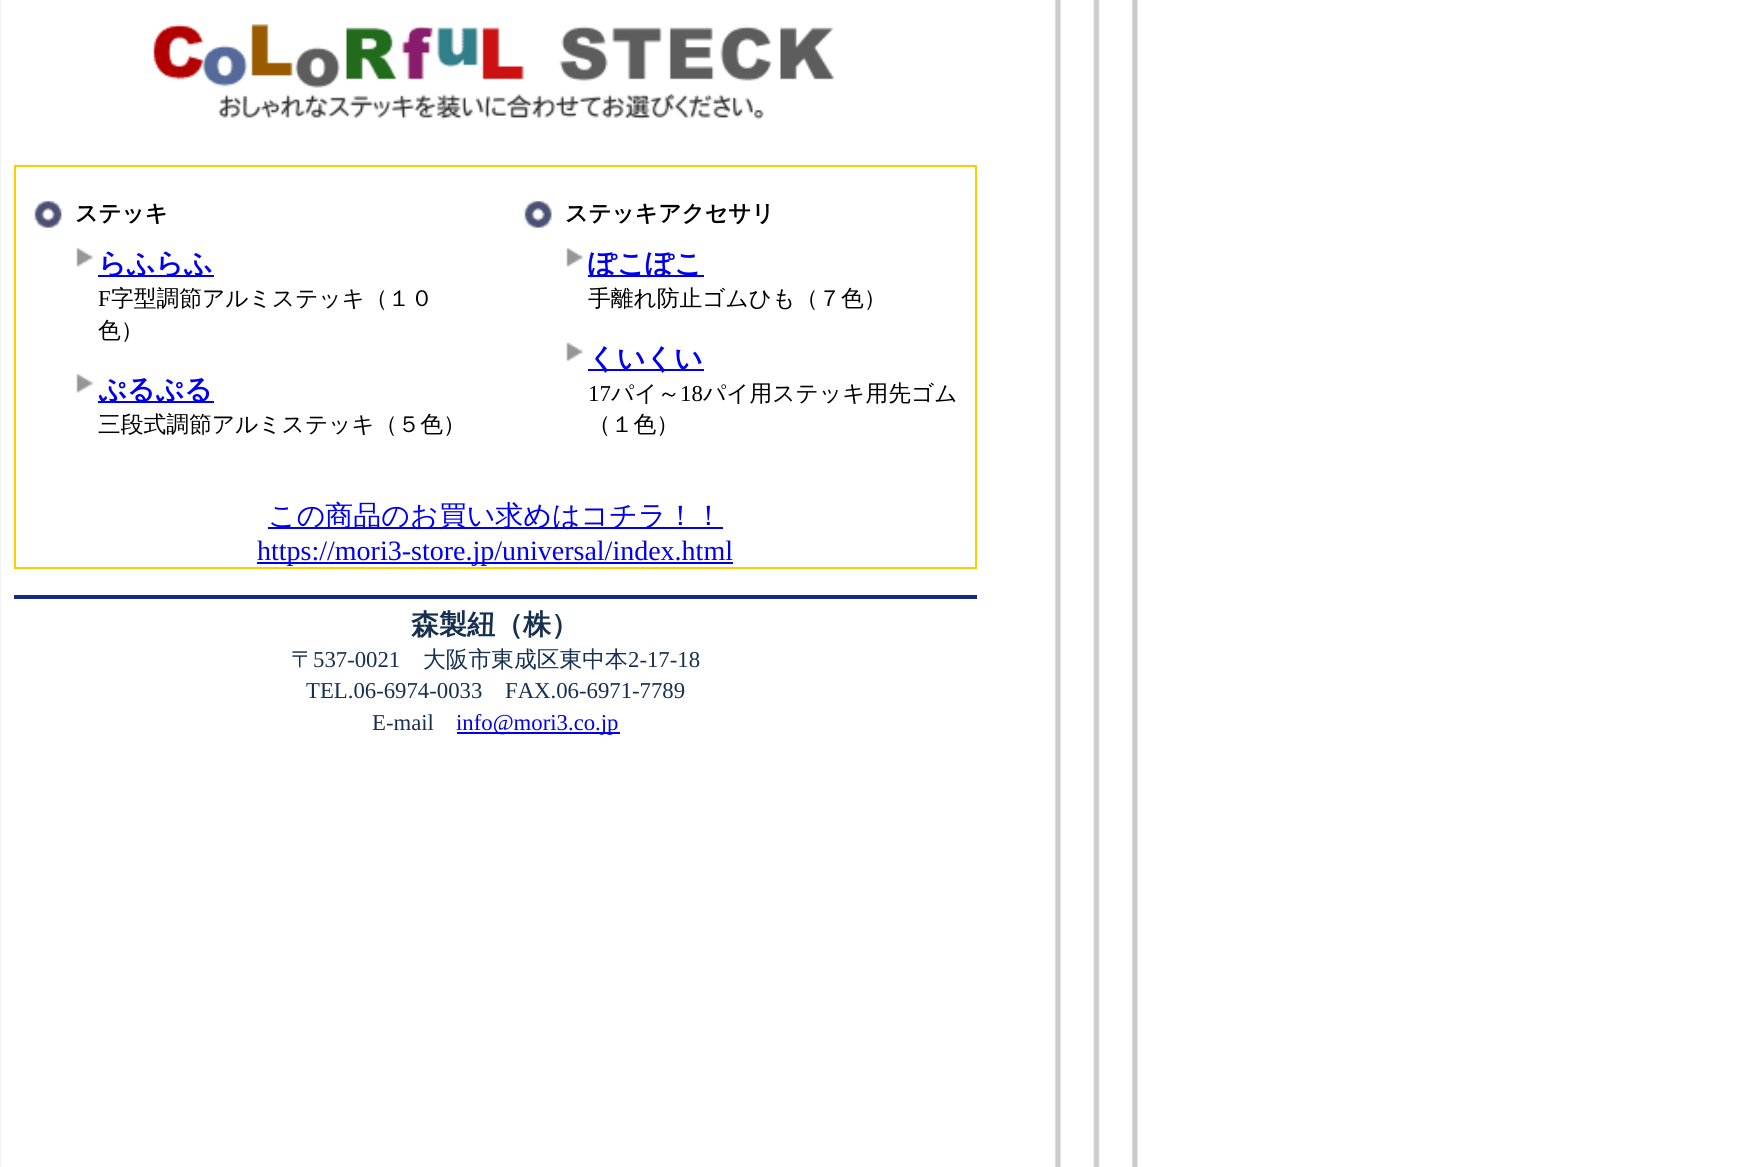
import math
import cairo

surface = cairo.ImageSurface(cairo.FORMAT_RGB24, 1763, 1167)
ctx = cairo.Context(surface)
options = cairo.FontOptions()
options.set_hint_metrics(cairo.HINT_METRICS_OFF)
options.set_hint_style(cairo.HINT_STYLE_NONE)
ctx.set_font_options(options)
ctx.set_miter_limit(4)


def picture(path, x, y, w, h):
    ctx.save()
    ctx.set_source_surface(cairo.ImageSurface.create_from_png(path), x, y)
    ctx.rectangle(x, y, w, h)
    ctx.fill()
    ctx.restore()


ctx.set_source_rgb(1, 1, 1)
ctx.paint()
picture("img1.png", 0, 0, 1138, 1167)
picture("img2.png", 153, 24, 682, 96)
ctx.rectangle(15, 166, 961, 402)
ctx.set_source_rgb(1, 0.8, 0)
ctx.stroke()
picture("img3.png", 34, 200, 28, 28)
ctx.select_font_face("WenQuanYi Zen Hei", cairo.FONT_SLANT_NORMAL, cairo.FONT_WEIGHT_BOLD)
ctx.set_font_size(22.75)
ctx.set_source_rgb(0, 0, 0)
ctx.move_to(75, 221)
ctx.show_text("ステッキ")
picture("img3.png", 524, 200, 28, 28)
ctx.move_to(565, 221)
ctx.show_text("ステッキアクセサリ")
picture("img4.png", 76, 247, 18, 20)
ctx.set_source_rgb(0, 0, 0.933)
ctx.rectangle(98, 275, 116, 2)
ctx.fill()
ctx.set_font_size(28)
ctx.move_to(98, 273)
ctx.show_text("らふらふ")
ctx.select_font_face("Liberation Serif")
ctx.set_font_size(22.75)
ctx.set_source_rgb(0, 0, 0)
ctx.move_to(98, 306)
ctx.show_text("F")
ctx.select_font_face("WenQuanYi Zen Hei Medium")
ctx.move_to(111, 306)
ctx.show_text("字型調節アルミステッキ（１０")
ctx.move_to(98, 338)
ctx.show_text("色）")
picture("img4.png", 76, 373, 18, 20)
ctx.set_source_rgb(0, 0, 0.933)
ctx.rectangle(98, 401, 116, 2)
ctx.fill()
ctx.select_font_face("WenQuanYi Zen Hei", cairo.FONT_SLANT_NORMAL, cairo.FONT_WEIGHT_BOLD)
ctx.set_font_size(28)
ctx.move_to(98, 399)
ctx.show_text("ぷるぷる")
ctx.select_font_face("WenQuanYi Zen Hei Medium")
ctx.set_font_size(22.75)
ctx.set_source_rgb(0, 0, 0)
ctx.move_to(98, 432)
ctx.show_text("三段式調節アルミステッキ（５色）")
picture("img5.png", 566, 247, 18, 20)
ctx.set_source_rgb(0, 0, 0.933)
ctx.rectangle(588, 275, 116, 2)
ctx.fill()
ctx.select_font_face("WenQuanYi Zen Hei", cairo.FONT_SLANT_NORMAL, cairo.FONT_WEIGHT_BOLD)
ctx.set_font_size(28)
ctx.move_to(588, 273)
ctx.show_text("ぽこぽこ")
ctx.select_font_face("WenQuanYi Zen Hei Medium")
ctx.set_font_size(22.75)
ctx.set_source_rgb(0, 0, 0)
ctx.move_to(588, 306)
ctx.show_text("手離れ防止ゴムひも（７色）")
picture("img6.png", 566, 342, 18, 20)
ctx.set_source_rgb(0, 0, 0.933)
ctx.rectangle(588, 369, 116, 2)
ctx.fill()
ctx.select_font_face("WenQuanYi Zen Hei", cairo.FONT_SLANT_NORMAL, cairo.FONT_WEIGHT_BOLD)
ctx.set_font_size(28)
ctx.move_to(588, 368)
ctx.show_text("くいくい")
ctx.select_font_face("Liberation Serif")
ctx.set_font_size(22.75)
ctx.set_source_rgb(0, 0, 0)
ctx.move_to(588, 401)
ctx.show_text("17")
ctx.select_font_face("WenQuanYi Zen Hei Medium")
ctx.move_to(611, 401)
ctx.show_text("パイ～")
ctx.select_font_face("Liberation Serif")
ctx.move_to(680, 401)
ctx.show_text("18")
ctx.select_font_face("WenQuanYi Zen Hei Medium")
ctx.move_to(703, 401)
ctx.show_text("パイ用ステッキ用先ゴム")
ctx.move_to(588, 432)
ctx.show_text("（１色）")
ctx.set_source_rgb(0, 0, 0.933)
ctx.rectangle(268, 527, 455, 2)
ctx.fill()
ctx.set_font_size(28)
ctx.move_to(268, 525)
ctx.show_text("この商品のお買い求めはコチラ！！")
ctx.rectangle(257, 562, 476, 2)
ctx.fill()
ctx.select_font_face("Liberation Serif")
ctx.move_to(257, 560)
ctx.show_text("https://mori3-store.jp/universal/index.html")
ctx.set_source_rgb(0.071, 0.173, 0.522)
ctx.rectangle(14, 595, 963, 4)
ctx.fill()
ctx.select_font_face("WenQuanYi Zen Hei", cairo.FONT_SLANT_NORMAL, cairo.FONT_WEIGHT_BOLD)
ctx.set_source_rgb(0.09, 0.188, 0.31)
ctx.move_to(411, 634)
ctx.show_text("森製紐（株）")
ctx.select_font_face("WenQuanYi Zen Hei Medium")
ctx.set_font_size(22.75)
ctx.move_to(291, 667)
ctx.show_text("〒")
ctx.select_font_face("Liberation Serif")
ctx.move_to(313, 667)
ctx.show_text("537-0021")
ctx.select_font_face("WenQuanYi Zen Hei Medium")
ctx.move_to(423, 667)
ctx.show_text("大阪市東成区東中本")
ctx.select_font_face("Liberation Serif")
ctx.move_to(628, 667)
ctx.show_text("2-17-18")
ctx.move_to(306, 698)
ctx.show_text("TEL.06-6974-0033")
ctx.move_to(505, 698)
ctx.show_text("FAX.06-6971-7789")
ctx.move_to(372, 730)
ctx.show_text("E-mail")
ctx.set_source_rgb(0, 0, 0.933)
ctx.rectangle(457, 732, 163, 2)
ctx.fill()
ctx.move_to(456, 730)
ctx.show_text("info@mori3.co.jp")
surface.write_to_png("page.png")
